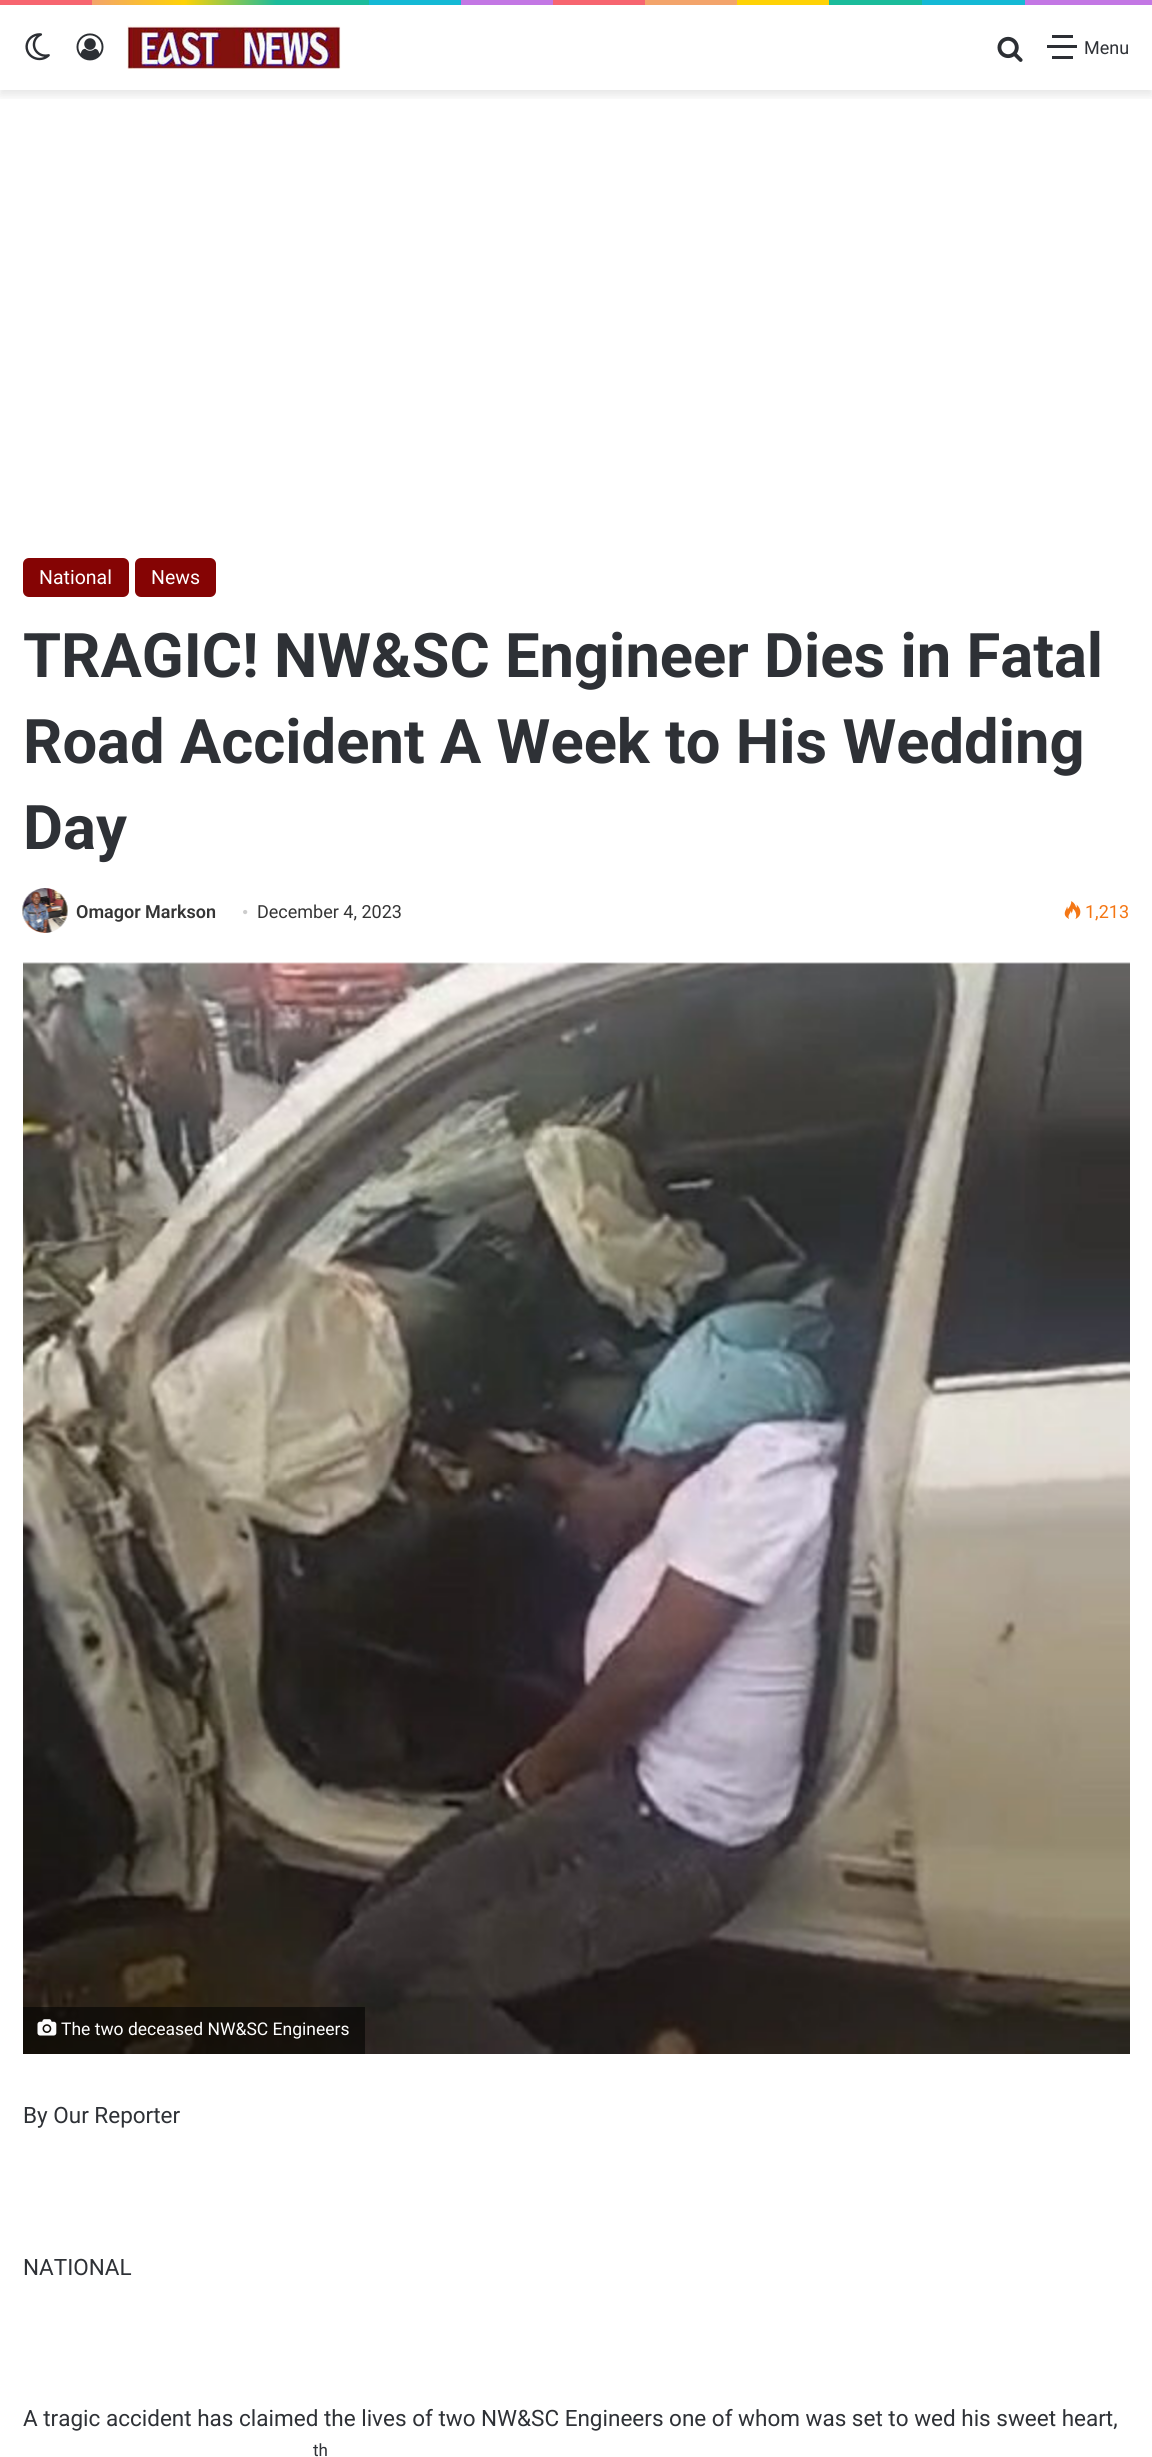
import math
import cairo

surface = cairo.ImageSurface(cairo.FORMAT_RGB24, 1152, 2457)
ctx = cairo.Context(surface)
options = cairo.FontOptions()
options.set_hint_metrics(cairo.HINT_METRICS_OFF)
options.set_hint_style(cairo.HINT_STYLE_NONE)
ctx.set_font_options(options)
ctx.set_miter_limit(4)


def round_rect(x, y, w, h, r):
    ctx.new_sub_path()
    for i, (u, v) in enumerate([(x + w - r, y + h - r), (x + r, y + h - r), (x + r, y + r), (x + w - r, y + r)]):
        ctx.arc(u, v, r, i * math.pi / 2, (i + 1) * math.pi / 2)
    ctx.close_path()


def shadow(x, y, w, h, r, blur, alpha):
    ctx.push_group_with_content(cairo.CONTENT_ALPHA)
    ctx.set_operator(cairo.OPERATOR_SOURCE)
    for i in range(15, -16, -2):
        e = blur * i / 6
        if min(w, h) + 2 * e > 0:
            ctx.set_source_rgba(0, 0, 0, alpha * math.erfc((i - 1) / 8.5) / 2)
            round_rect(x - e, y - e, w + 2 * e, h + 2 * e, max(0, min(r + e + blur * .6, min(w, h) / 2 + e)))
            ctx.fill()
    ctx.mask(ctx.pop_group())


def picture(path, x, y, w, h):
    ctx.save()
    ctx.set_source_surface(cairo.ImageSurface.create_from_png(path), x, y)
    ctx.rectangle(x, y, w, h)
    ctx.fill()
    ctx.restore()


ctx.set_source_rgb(1, 1, 1)
ctx.paint()
gradient = cairo.LinearGradient(0, 2.3, 1152, 2.2)
gradient.add_color_stop_rgba(0, 0.969, 0.396, 0.439, 1)
gradient.add_color_stop_rgba(0.08, 0.969, 0.396, 0.439, 1)
gradient.add_color_stop_rgba(0.08, 0.953, 0.643, 0.42, 1)
gradient.add_color_stop_rgba(0.16, 1, 0.824, 0.02, 1)
gradient.add_color_stop_rgba(0.24, 0.106, 0.737, 0.608, 1)
gradient.add_color_stop_rgba(0.32, 0.106, 0.737, 0.608, 1)
gradient.add_color_stop_rgba(0.32, 0.078, 0.725, 0.835, 1)
gradient.add_color_stop_rgba(0.4, 0.078, 0.725, 0.835, 1)
gradient.add_color_stop_rgba(0.4, 0.765, 0.467, 0.894, 1)
gradient.add_color_stop_rgba(0.48, 0.765, 0.467, 0.894, 1)
gradient.add_color_stop_rgba(0.48, 0.969, 0.396, 0.439, 1)
gradient.add_color_stop_rgba(0.56, 0.969, 0.396, 0.439, 1)
gradient.add_color_stop_rgba(0.56, 0.953, 0.643, 0.42, 1)
gradient.add_color_stop_rgba(0.64, 0.953, 0.643, 0.42, 1)
gradient.add_color_stop_rgba(0.64, 1, 0.824, 0.02, 1)
gradient.add_color_stop_rgba(0.72, 1, 0.824, 0.02, 1)
gradient.add_color_stop_rgba(0.72, 0.106, 0.737, 0.608, 1)
gradient.add_color_stop_rgba(0.8, 0.106, 0.737, 0.608, 1)
gradient.add_color_stop_rgba(0.8, 0.078, 0.725, 0.835, 1)
gradient.add_color_stop_rgba(0.89, 0.078, 0.725, 0.835, 1)
gradient.add_color_stop_rgba(0.89, 0.765, 0.467, 0.894, 1)
gradient.add_color_stop_rgba(1, 0.765, 0.467, 0.894, 1)
ctx.set_source(gradient)
ctx.rectangle(0, 0, 1152, 5)
ctx.fill()
ctx.save()
ctx.rectangle(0, 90, 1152, 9)
ctx.clip()
ctx.set_source_rgb(0, 0, 0)
shadow(0, 9, 1152, 86, 0, 5, 0.1)
ctx.restore()
picture("img1.png", 25, 33, 25, 28)
picture("img2.png", 76, 33, 28, 28)
picture("img3.png", 127, 25, 214, 44)
picture("img4.png", 997, 36, 26, 26)
ctx.set_source_rgb(0.173, 0.184, 0.204)
ctx.rectangle(1047, 45, 30, 3)
ctx.fill()
ctx.rectangle(1052, 35, 21, 3)
ctx.fill()
ctx.rectangle(1052, 56, 21, 3)
ctx.fill()
ctx.select_font_face("Roboto")
ctx.set_font_size(18)
ctx.set_source_rgb(0.18, 0.192, 0.212)
ctx.move_to(1084, 54)
ctx.show_text("Menu")
ctx.set_source_rgb(0.522, 0.016, 0.016)
round_rect(23, 558, 106, 39, 6)
ctx.fill()
ctx.set_font_size(19.5)
ctx.set_source_rgb(1, 1, 1)
ctx.move_to(39, 584)
ctx.show_text("National")
ctx.set_source_rgb(0.522, 0.016, 0.016)
round_rect(135, 558, 81, 39, 6)
ctx.fill()
ctx.set_source_rgb(1, 1, 1)
ctx.move_to(151, 584)
ctx.show_text("News")
ctx.select_font_face("Roboto", cairo.FONT_SLANT_NORMAL, cairo.FONT_WEIGHT_BOLD)
ctx.set_font_size(61.5)
ctx.set_source_rgb(0.18, 0.192, 0.212)
ctx.move_to(23, 677)
ctx.show_text("TRAGIC! NW&SC Engineer Dies in Fatal")
ctx.move_to(23, 763)
ctx.show_text("Road Accident A Week to His Wedding")
ctx.move_to(23, 849)
ctx.show_text("Day")
picture("img5.png", 22, 888, 46, 45)
ctx.select_font_face("Roboto SemiBold")
ctx.set_font_size(18)
ctx.set_source_rgb(0.208, 0.208, 0.208)
ctx.move_to(76, 918)
ctx.show_text("Omagor Markson")
ctx.select_font_face("Liberation Serif")
ctx.set_source_rgb(0.804, 0.804, 0.804)
ctx.move_to(242, 918)
ctx.show_text("•")
ctx.select_font_face("Roboto")
ctx.set_source_rgb(0.208, 0.208, 0.208)
ctx.move_to(257, 918)
ctx.show_text("December 4, 2023")
picture("img6.png", 1064, 901, 17, 18)
ctx.set_source_rgb(0.957, 0.463, 0.078)
ctx.move_to(1085, 918)
ctx.show_text("1,213")
picture("img7.png", 23, 962, 1107, 1092)
ctx.set_source_rgba(0.012, 0.012, 0.012, 0.6)
ctx.rectangle(23, 2007, 342, 47)
ctx.fill()
picture("img8.png", 37, 2019, 20, 17)
ctx.set_font_size(17.5)
ctx.set_source_rgb(1, 1, 1)
ctx.move_to(61, 2035)
ctx.show_text("The two deceased NW&SC Engineers")
ctx.set_font_size(22.5)
ctx.set_source_rgb(0.18, 0.192, 0.212)
ctx.move_to(23, 2123)
ctx.show_text("By Our Reporter")
ctx.move_to(23, 2275)
ctx.show_text("NATIONAL")
ctx.move_to(23, 2426)
ctx.show_text("A tragic accident has claimed the lives of two NW&SC Engineers one of whom was set to wed his sweet heart,")
ctx.set_font_size(17)
ctx.move_to(313, 2456)
ctx.show_text("th")
surface.write_to_png("page.png")
